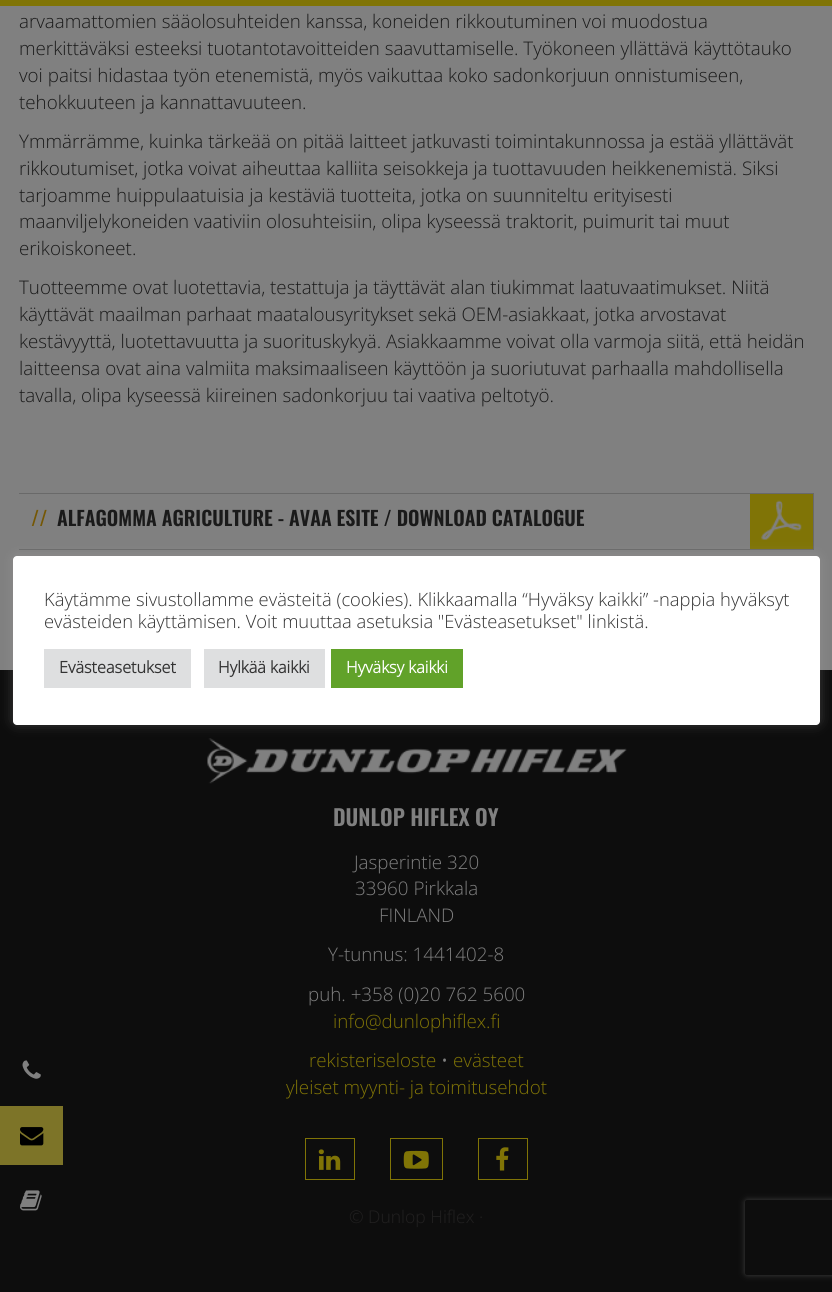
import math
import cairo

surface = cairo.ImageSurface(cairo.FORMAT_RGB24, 832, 1292)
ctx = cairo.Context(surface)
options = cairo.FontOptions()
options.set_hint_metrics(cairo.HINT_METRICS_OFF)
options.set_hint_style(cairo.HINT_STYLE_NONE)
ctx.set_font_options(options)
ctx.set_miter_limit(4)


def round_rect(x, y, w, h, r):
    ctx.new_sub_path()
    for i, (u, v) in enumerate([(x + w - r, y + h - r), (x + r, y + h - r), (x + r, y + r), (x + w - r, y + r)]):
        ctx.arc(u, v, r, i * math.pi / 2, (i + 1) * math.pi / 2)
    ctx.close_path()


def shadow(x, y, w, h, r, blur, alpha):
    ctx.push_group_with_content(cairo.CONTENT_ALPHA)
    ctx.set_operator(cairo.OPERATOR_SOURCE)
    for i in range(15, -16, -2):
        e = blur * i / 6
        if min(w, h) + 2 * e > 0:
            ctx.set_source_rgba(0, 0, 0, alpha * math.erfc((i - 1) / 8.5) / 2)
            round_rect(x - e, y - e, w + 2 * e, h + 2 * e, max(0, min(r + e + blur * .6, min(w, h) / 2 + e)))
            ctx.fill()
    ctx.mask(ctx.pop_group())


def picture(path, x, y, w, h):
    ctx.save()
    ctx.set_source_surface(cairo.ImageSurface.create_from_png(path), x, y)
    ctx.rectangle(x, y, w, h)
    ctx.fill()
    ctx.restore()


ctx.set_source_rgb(0.502, 0.502, 0.502)
ctx.paint()
ctx.set_source_rgb(0.502, 0.455, 0.024)
ctx.rectangle(0, 0, 832, 6)
ctx.fill()
ctx.select_font_face("Open Sans Light")
ctx.set_font_size(18.75)
ctx.set_source_rgb(0.102, 0.102, 0.102)
ctx.move_to(19, 28)
ctx.show_text("arvaamattomien sääolosuhteiden kanssa, koneiden rikkoutuminen voi muodostua")
ctx.move_to(19, 55)
ctx.show_text("merkittäväksi esteeksi tuotantotavoitteiden saavuttamiselle. Työkoneen yllättävä käyttötauko")
ctx.move_to(19, 82)
ctx.show_text("voi paitsi hidastaa työn etenemistä, myös vaikuttaa koko sadonkorjuun onnistumiseen,")
ctx.move_to(19, 109)
ctx.show_text("tehokkuuteen ja kannattavuuteen.")
ctx.move_to(19, 148)
ctx.show_text("Ymmärrämme, kuinka tärkeää on pitää laitteet jatkuvasti toimintakunnossa ja estää yllättävät")
ctx.move_to(19, 175)
ctx.show_text("rikkoutumiset, jotka voivat aiheuttaa kalliita seisokkeja ja tuottavuuden heikkenemistä. Siksi")
ctx.move_to(19, 202)
ctx.show_text("tarjoamme huippulaatuisia ja kestäviä tuotteita, jotka on suunniteltu erityisesti")
ctx.move_to(19, 228)
ctx.show_text("maanviljelykoneiden vaativiin olosuhteisiin, olipa kyseessä traktorit, puimurit tai muut")
ctx.move_to(19, 255)
ctx.show_text("erikoiskoneet.")
ctx.move_to(19, 294)
ctx.show_text("Tuotteemme ovat luotettavia, testattuja ja täyttävät alan tiukimmat laatuvaatimukset. Niitä")
ctx.move_to(19, 321)
ctx.show_text("käyttävät maailman parhaat maatalousyritykset sekä OEM-asiakkaat, jotka arvostavat")
ctx.move_to(19, 348)
ctx.show_text("kestävyyttä, luotettavuutta ja suorituskykyä. Asiakkaamme voivat olla varmoja siitä, että heidän")
ctx.move_to(19, 375)
ctx.show_text("laitteensa ovat aina valmiita maksimaaliseen käyttöön ja suoriutuvat parhaalla mahdollisella")
ctx.move_to(19, 402)
ctx.show_text("tavalla, olipa kyseessä kiireinen sadonkorjuu tai vaativa peltotyö.")
ctx.set_source_rgb(0.412, 0.412, 0.412)
ctx.rectangle(19, 493, 795, 1)
ctx.fill()
ctx.rectangle(813, 493, 1, 57)
ctx.fill()
ctx.rectangle(19, 549, 795, 1)
ctx.fill()
ctx.select_font_face("Oswald SemiBold")
ctx.set_font_size(19.9)
ctx.set_source_rgb(0.459, 0.341, 0.016)
ctx.move_to(31, 526)
ctx.show_text("//")
ctx.set_source_rgb(0.102, 0.102, 0.102)
ctx.move_to(57, 526)
ctx.show_text("ALFAGOMMA AGRICULTURE - AVAA ESITE / DOWNLOAD CATALOGUE")
ctx.set_source_rgb(0.502, 0.455, 0.024)
ctx.rectangle(750, 494, 63, 55)
ctx.fill()
picture("img1.png", 761, 500, 41, 40)
ctx.set_source_rgb(0.051, 0.051, 0.051)
ctx.rectangle(0, 670, 832, 622)
ctx.fill()
picture("img2.png", 22, 1060, 19, 19)
ctx.set_source_rgb(0.49, 0.455, 0.157)
ctx.rectangle(0, 1106, 63, 59)
ctx.fill()
picture("img3.png", 20, 1127, 24, 19)
picture("img4.png", 20, 1190, 22, 21)
picture("img5.png", 207, 738, 420, 46)
ctx.set_font_size(22)
ctx.set_source_rgb(0.502, 0.502, 0.502)
ctx.move_to(333, 826)
ctx.show_text("DUNLOP HIFLEX OY")
ctx.select_font_face("Open Sans Light")
ctx.set_font_size(18.75)
ctx.move_to(354, 869)
ctx.show_text("Jasperintie 320")
ctx.move_to(355, 895)
ctx.show_text("33960 Pirkkala")
ctx.move_to(379, 922)
ctx.show_text("FINLAND")
ctx.move_to(328, 961)
ctx.show_text("Y-tunnus: 1441402-8")
ctx.move_to(308, 1001)
ctx.show_text("puh. +358 (0)20 762 5600")
ctx.set_source_rgb(0.502, 0.455, 0.024)
ctx.move_to(333, 1028)
ctx.show_text("info@dunlophiflex.fi")
ctx.move_to(309, 1067)
ctx.show_text("rekisteriseloste")
ctx.set_source_rgb(0.502, 0.502, 0.502)
ctx.move_to(441, 1067)
ctx.show_text("•")
ctx.set_source_rgb(0.502, 0.455, 0.024)
ctx.move_to(453, 1067)
ctx.show_text("evästeet")
ctx.move_to(286, 1094)
ctx.show_text("yleiset myynti- ja toimitusehdot")
ctx.rectangle(305.5, 1138.5, 49, 41)
ctx.set_line_width(1)
ctx.stroke()
picture("img6.png", 318, 1149, 23, 21)
ctx.rectangle(390.5, 1138.5, 52, 41)
ctx.stroke()
picture("img7.png", 403, 1150, 26, 19)
ctx.rectangle(478.5, 1138.5, 49, 41)
ctx.stroke()
picture("img8.png", 496, 1147, 13, 24)
ctx.set_font_size(17.5)
ctx.set_source_rgb(0.129, 0.125, 0.125)
ctx.move_to(349, 1223)
ctx.show_text("© Dunlop Hiflex ·")
ctx.set_source_rgb(0.675, 0.671, 0.671)
shadow(13, 555, 807, 169, 4, 6, 0.3)
ctx.set_source_rgb(1, 1, 1)
round_rect(13, 556, 807, 169, 4)
ctx.fill()
ctx.set_font_size(18.35)
ctx.set_source_rgb(0.2, 0.2, 0.2)
ctx.move_to(44, 606)
ctx.show_text("Käytämme sivustollamme evästeitä (cookies). Klikkaamalla “Hyväksy kaikki” -nappia hyväksyt")
ctx.move_to(44, 628)
ctx.show_text("evästeiden käyttämisen. Voit muuttaa asetuksia \"Evästeasetukset\" linkistä.")
ctx.set_source_rgb(0.871, 0.875, 0.878)
ctx.rectangle(44, 649, 147, 39)
ctx.fill()
ctx.select_font_face("Open Sans", cairo.FONT_SLANT_NORMAL, cairo.FONT_WEIGHT_BOLD)
ctx.set_font_size(16.25)
ctx.set_source_rgb(0.2, 0.2, 0.2)
ctx.move_to(59, 673)
ctx.show_text("Evästeasetukset")
ctx.set_source_rgb(0.871, 0.875, 0.878)
ctx.rectangle(204, 649, 121, 39)
ctx.fill()
ctx.set_source_rgb(0.2, 0.2, 0.2)
ctx.move_to(218, 673)
ctx.show_text("Hylkää kaikki")
ctx.set_source_rgb(0.38, 0.635, 0.161)
ctx.rectangle(331, 649, 132, 39)
ctx.fill()
ctx.set_source_rgb(1, 1, 1)
ctx.move_to(346, 673)
ctx.show_text("Hyväksy kaikki")
ctx.save()
ctx.set_fill_rule(cairo.FILL_RULE_EVEN_ODD)
ctx.new_path()
ctx.move_to(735, 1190)
ctx.line_to(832, 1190)
ctx.line_to(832, 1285)
ctx.line_to(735, 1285)
ctx.close_path()
ctx.move_to(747.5, 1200)
ctx.line_to(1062.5, 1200)
ctx.curve_to(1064, 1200, 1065, 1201, 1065, 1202.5)
ctx.line_to(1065, 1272.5)
ctx.curve_to(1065, 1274, 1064, 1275, 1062.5, 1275)
ctx.line_to(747.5, 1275)
ctx.curve_to(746, 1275, 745, 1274, 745, 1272.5)
ctx.line_to(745, 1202.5)
ctx.curve_to(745, 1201, 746, 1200, 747.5, 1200)
ctx.close_path()
ctx.clip()
ctx.set_source_rgb(0.251, 0.251, 0.251)
shadow(745, 1200, 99, 75, 2.5, 3, 1)
ctx.restore()
surface.write_to_png("page.png")
